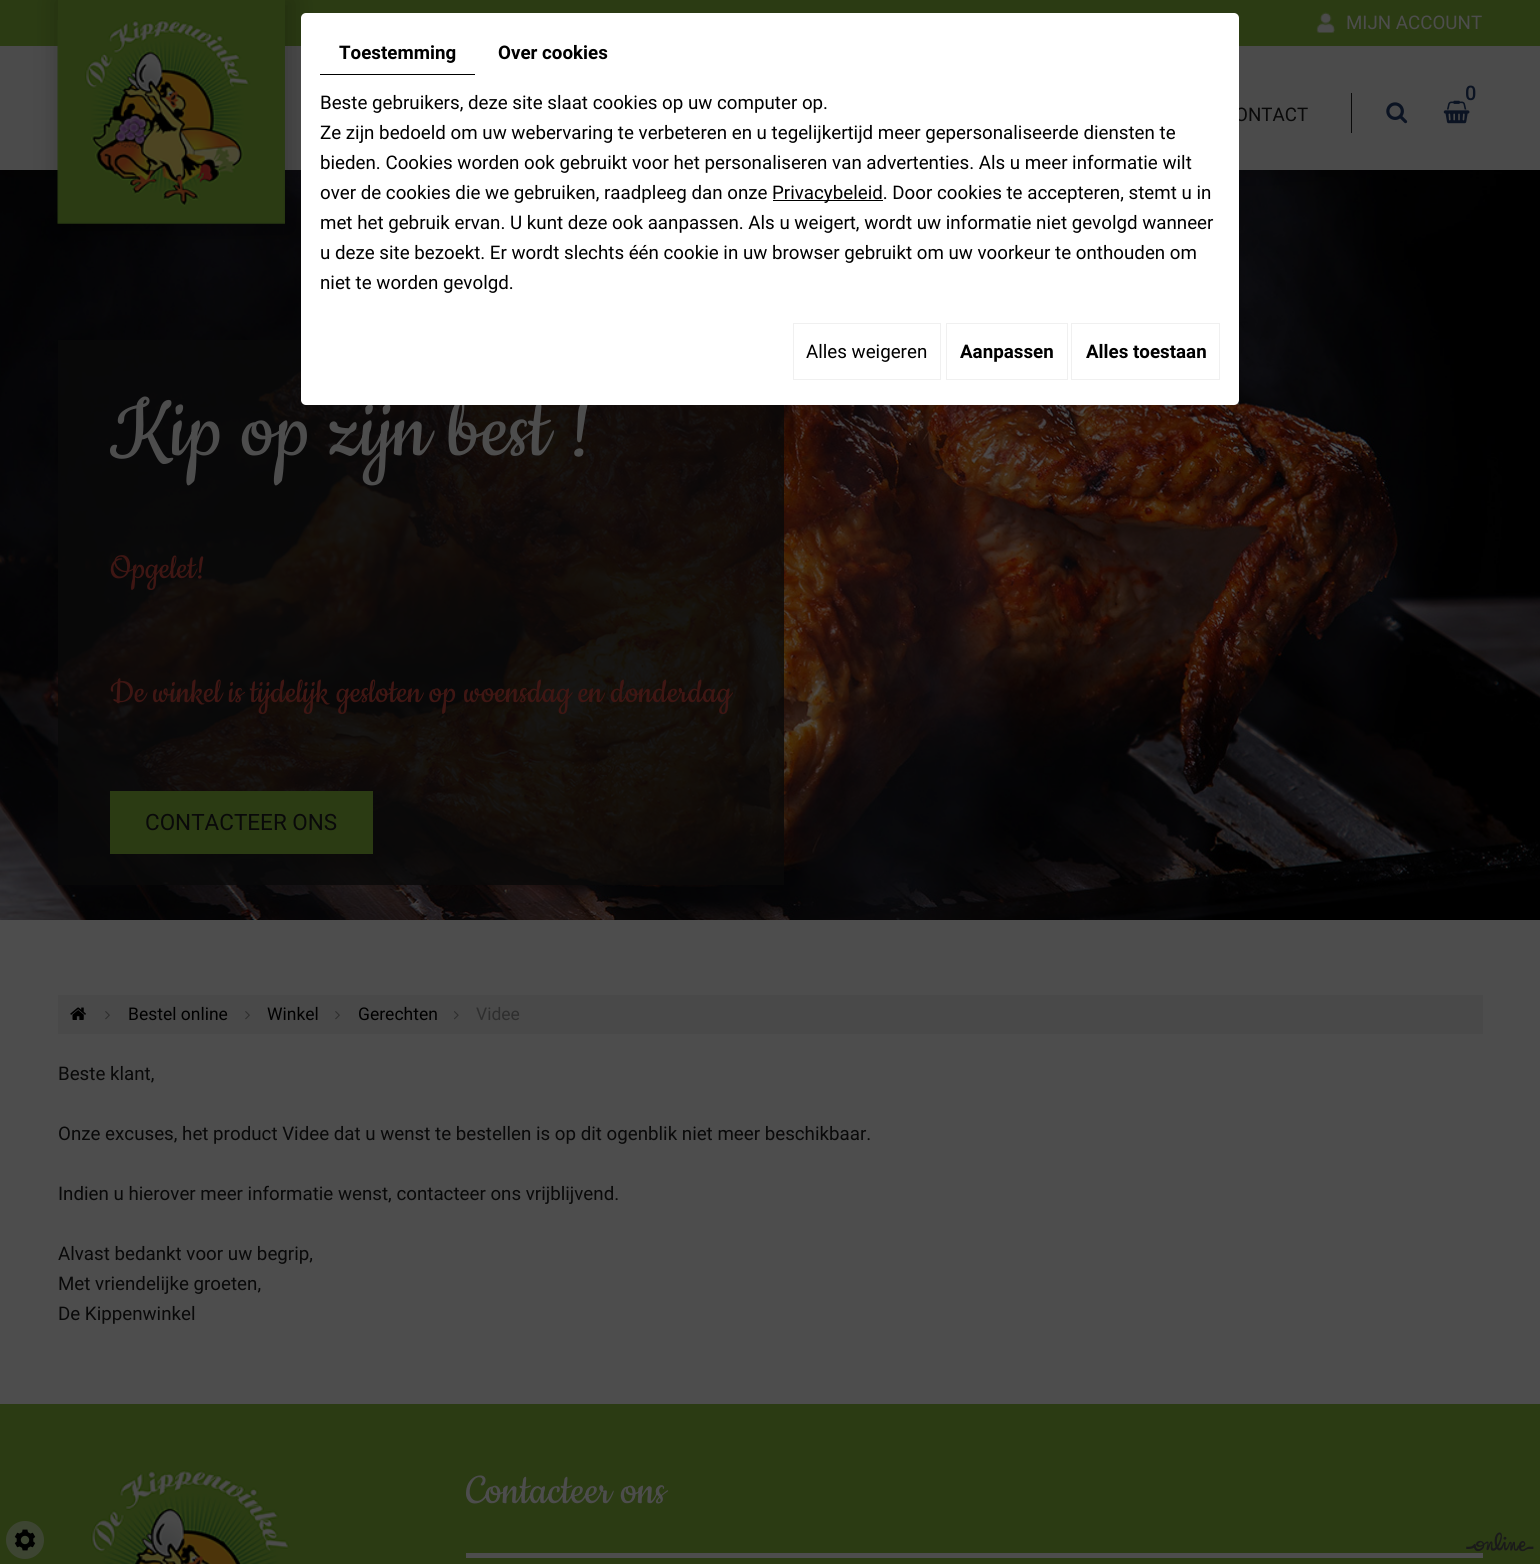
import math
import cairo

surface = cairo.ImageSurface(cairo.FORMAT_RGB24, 1540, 1564)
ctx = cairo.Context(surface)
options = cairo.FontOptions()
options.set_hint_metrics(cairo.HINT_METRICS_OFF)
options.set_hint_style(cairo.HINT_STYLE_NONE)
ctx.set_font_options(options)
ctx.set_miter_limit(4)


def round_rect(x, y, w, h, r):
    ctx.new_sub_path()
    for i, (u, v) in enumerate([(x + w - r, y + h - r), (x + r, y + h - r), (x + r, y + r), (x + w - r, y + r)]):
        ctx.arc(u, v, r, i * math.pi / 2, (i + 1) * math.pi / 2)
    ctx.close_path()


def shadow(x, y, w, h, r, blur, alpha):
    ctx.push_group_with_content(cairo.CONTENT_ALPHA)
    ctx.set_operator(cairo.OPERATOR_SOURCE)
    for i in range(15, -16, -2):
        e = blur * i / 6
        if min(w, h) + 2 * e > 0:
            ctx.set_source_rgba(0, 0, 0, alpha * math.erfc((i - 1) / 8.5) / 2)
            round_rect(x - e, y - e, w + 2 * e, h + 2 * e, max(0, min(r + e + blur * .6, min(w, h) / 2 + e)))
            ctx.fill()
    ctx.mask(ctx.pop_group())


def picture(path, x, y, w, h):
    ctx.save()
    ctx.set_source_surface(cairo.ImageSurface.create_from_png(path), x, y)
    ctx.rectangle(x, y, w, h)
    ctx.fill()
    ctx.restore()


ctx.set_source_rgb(0.302, 0.302, 0.302)
ctx.paint()
picture("img5.png", 0, 170, 1540, 750)
ctx.set_source_rgb(0, 0, 0)
shadow(-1, -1, 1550, 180, 0, 12.5, 0.2)
ctx.set_source_rgb(0.169, 0.231, 0.075)
ctx.rectangle(0, 0, 1540, 46)
ctx.fill()
picture("img1.png", 1316, 12, 19, 21)
ctx.select_font_face("Roboto")
ctx.set_font_size(18.75)
ctx.set_source_rgb(0.302, 0.302, 0.302)
ctx.move_to(1346, 29)
ctx.show_text("MIJN ACCOUNT")
ctx.set_source_rgb(0.294, 0.294, 0.294)
ctx.rectangle(0, 46, 1540, 124)
ctx.fill()
ctx.save()
ctx.set_fill_rule(cairo.FILL_RULE_EVEN_ODD)
ctx.new_path()
ctx.move_to(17, 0)
ctx.line_to(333, 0)
ctx.line_to(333, 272)
ctx.line_to(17, 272)
ctx.close_path()
ctx.move_to(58, 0)
ctx.line_to(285, 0)
ctx.line_to(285, 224)
ctx.line_to(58, 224)
ctx.close_path()
ctx.clip()
ctx.set_source_rgb(0, 0, 0)
shadow(56, -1, 238, 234, 0, 12.5, 0.2)
ctx.restore()
picture("img2.png", 57, 20, 228, 204)
ctx.set_source_rgb(0.039, 0.039, 0.039)
ctx.move_to(1235, 121)
ctx.show_text("ONTACT")
ctx.rectangle(1351, 93, 1, 40)
ctx.fill()
picture("img3.png", 1386, 102, 22, 22)
ctx.select_font_face("Roboto Medium")
ctx.set_font_size(20)
ctx.set_source_rgb(0.043, 0.078, 0.133)
ctx.move_to(1465, 100)
ctx.show_text("0")
picture("img4.png", 1443, 100, 27, 24)
ctx.set_source_rgba(0.039, 0.039, 0.039, 0.8)
ctx.rectangle(58, 340, 726, 545)
ctx.fill()
ctx.select_font_face("Cookie")
ctx.set_font_size(95)
ctx.set_source_rgb(0.302, 0.302, 0.302)
ctx.move_to(110, 455)
ctx.show_text("Kip op zijn best !")
ctx.set_font_size(37.5)
ctx.set_source_rgb(0.247, 0.086, 0.078)
ctx.move_to(110, 578)
ctx.show_text("Opgelet!")
ctx.move_to(110, 702)
ctx.show_text("De winkel is tijdelijk gesloten op woensdag en donderdag")
ctx.set_source_rgb(0.169, 0.231, 0.075)
ctx.rectangle(110, 791, 263, 63)
ctx.fill()
ctx.select_font_face("Roboto")
ctx.set_font_size(22.5)
ctx.set_source_rgb(0.039, 0.039, 0.039)
ctx.move_to(145, 830)
ctx.show_text("CONTACTEER ONS")
ctx.set_source_rgb(0.286, 0.286, 0.286)
ctx.rectangle(58, 995, 1425, 39)
ctx.fill()
picture("img6.png", 70, 1007, 16, 13)
picture("img7.png", 105, 1011, 5, 9)
ctx.set_font_size(17.5)
ctx.set_source_rgb(0, 0, 0)
ctx.move_to(128, 1020)
ctx.show_text("Bestel online")
picture("img7.png", 245, 1011, 5, 9)
ctx.move_to(267, 1020)
ctx.show_text("Winkel")
picture("img7.png", 335, 1011, 5, 9)
ctx.move_to(358, 1020)
ctx.show_text("Gerechten")
picture("img8.png", 454, 1011, 5, 9)
ctx.set_source_rgb(0.18, 0.18, 0.18)
ctx.move_to(476, 1020)
ctx.show_text("Videe")
ctx.set_font_size(18.75)
ctx.set_source_rgb(0.039, 0.039, 0.039)
ctx.move_to(58, 1080)
ctx.show_text("Beste klant,")
ctx.move_to(58, 1140)
ctx.show_text("Onze excuses, het product Videe dat u wenst te bestellen is op dit ogenblik niet meer beschikbaar.")
ctx.move_to(58, 1200)
ctx.show_text("Indien u hierover meer informatie wenst, contacteer ons vrijblijvend.")
ctx.move_to(58, 1260)
ctx.show_text("Alvast bedankt voor uw begrip,")
ctx.move_to(58, 1290)
ctx.show_text("Met vriendelijke groeten,")
ctx.move_to(58, 1320)
ctx.show_text("De Kippenwinkel")
ctx.set_source_rgb(0.169, 0.231, 0.075)
ctx.rectangle(0, 1404, 1540, 160)
ctx.fill()
picture("img9.png", 91, 1470, 199, 94)
ctx.set_source_rgb(0.302, 0.302, 0.302)
ctx.rectangle(466, 1553, 1017, 5)
ctx.fill()
ctx.select_font_face("Cookie")
ctx.set_font_size(47.5)
ctx.move_to(466, 1503)
ctx.show_text("Contacteer ons")
ctx.set_source_rgb(1, 1, 1)
round_rect(301, 13, 938, 392, 5)
ctx.fill()
ctx.set_source_rgb(0, 0, 0)
ctx.rectangle(320, 74, 155, 1)
ctx.fill()
ctx.select_font_face("Roboto", cairo.FONT_SLANT_NORMAL, cairo.FONT_WEIGHT_BOLD)
ctx.set_font_size(18.75)
ctx.move_to(339, 59)
ctx.show_text("Toestemming")
ctx.move_to(498, 59)
ctx.show_text("Over cookies")
ctx.select_font_face("Roboto")
ctx.move_to(320, 109)
ctx.show_text("Beste gebruikers, deze site slaat cookies op uw computer op.")
ctx.move_to(320, 139)
ctx.show_text("Ze zijn bedoeld om uw webervaring te verbeteren en u tegelijkertijd meer gepersonaliseerde diensten te")
ctx.move_to(320, 169)
ctx.show_text("bieden. Cookies worden ook gebruikt voor het personaliseren van advertenties. Als u meer informatie wilt")
ctx.move_to(320, 199)
ctx.show_text("over de cookies die we gebruiken, raadpleeg dan onze")
ctx.rectangle(773, 200, 110, 1)
ctx.fill()
ctx.move_to(772, 199)
ctx.show_text("Privacybeleid. Door cookies te accepteren, stemt u in")
ctx.move_to(320, 229)
ctx.show_text("met het gebruik ervan. U kunt deze ook aanpassen. Als u weigert, wordt uw informatie niet gevolgd wanneer")
ctx.move_to(320, 259)
ctx.show_text("u deze site bezoekt. Er wordt slechts één cookie in uw browser gebruikt om uw voorkeur te onthouden om")
ctx.move_to(320, 289)
ctx.show_text("niet te worden gevolgd.")
ctx.rectangle(793.5, 323.5, 147, 56)
ctx.set_source_rgb(0.941, 0.941, 0.941)
ctx.set_line_width(1)
ctx.stroke()
ctx.set_source_rgb(0, 0, 0)
ctx.move_to(806, 358)
ctx.show_text("Alles weigeren")
ctx.rectangle(946.5, 323.5, 121, 56)
ctx.set_source_rgb(0.941, 0.941, 0.941)
ctx.stroke()
ctx.select_font_face("Roboto", cairo.FONT_SLANT_NORMAL, cairo.FONT_WEIGHT_BOLD)
ctx.set_source_rgb(0, 0, 0)
ctx.move_to(960, 358)
ctx.show_text("Aanpassen")
ctx.rectangle(1071.5, 323.5, 148, 56)
ctx.set_source_rgb(0.941, 0.941, 0.941)
ctx.stroke()
ctx.set_source_rgb(0, 0, 0)
ctx.move_to(1086, 358)
ctx.show_text("Alles toestaan")
ctx.set_source_rgb(0.239, 0.271, 0.196)
ctx.new_path()
ctx.arc(25, 1540, 19, 0, 2 * math.pi)
ctx.fill()
picture("img10.png", 14, 1529, 22, 22)
picture("img11.png", 1466, 1532, 68, 20)
surface.write_to_png("page.png")
